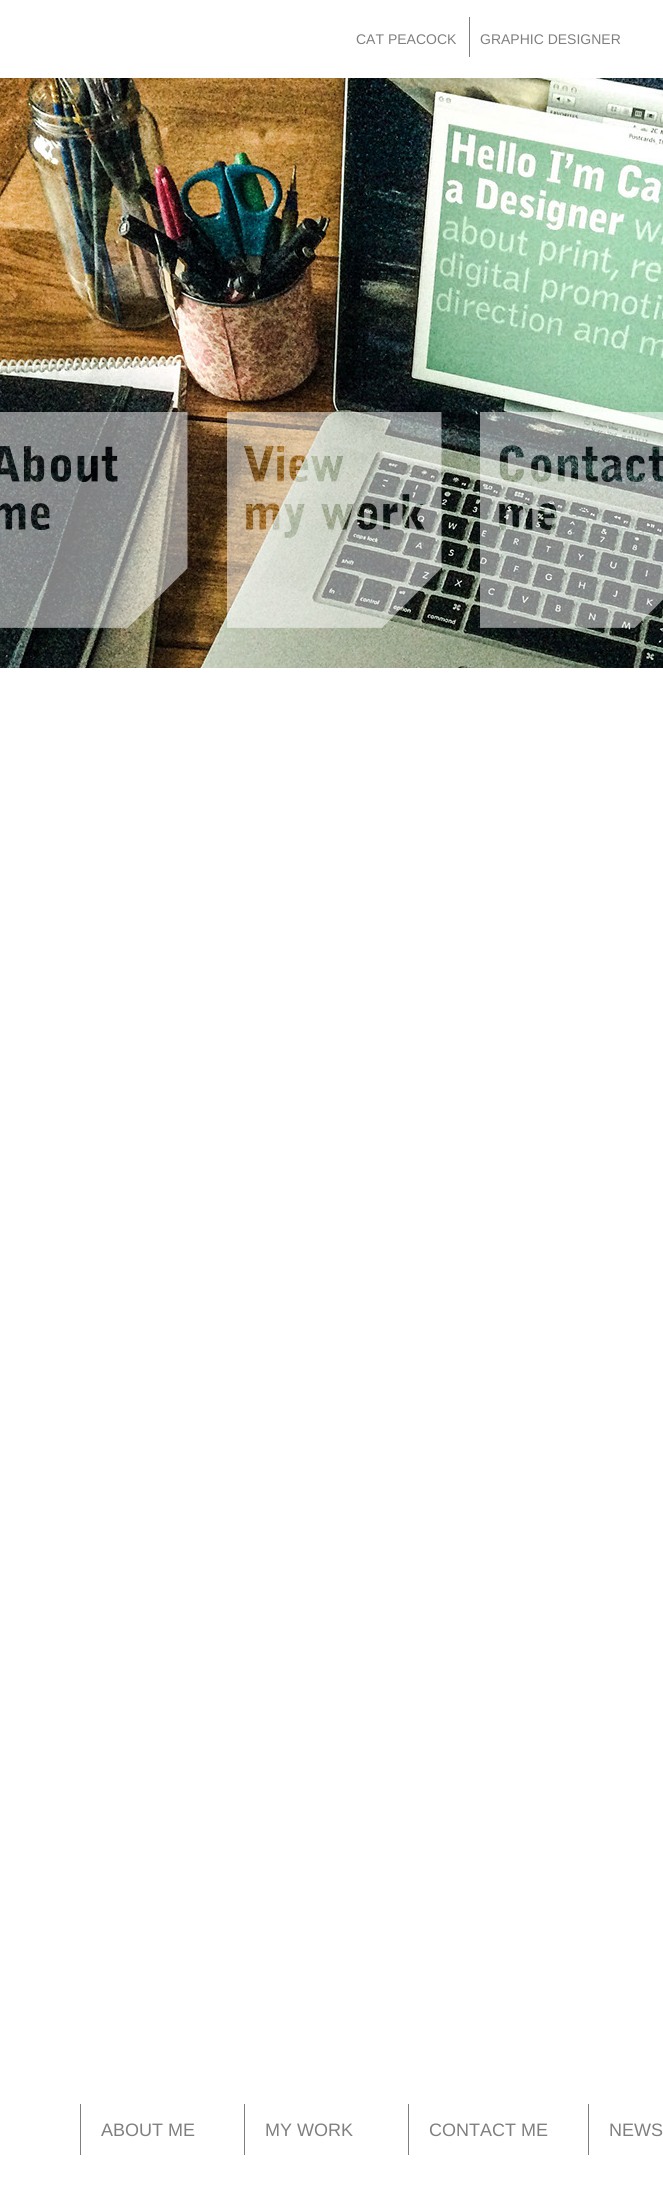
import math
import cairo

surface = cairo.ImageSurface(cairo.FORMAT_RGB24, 663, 2196)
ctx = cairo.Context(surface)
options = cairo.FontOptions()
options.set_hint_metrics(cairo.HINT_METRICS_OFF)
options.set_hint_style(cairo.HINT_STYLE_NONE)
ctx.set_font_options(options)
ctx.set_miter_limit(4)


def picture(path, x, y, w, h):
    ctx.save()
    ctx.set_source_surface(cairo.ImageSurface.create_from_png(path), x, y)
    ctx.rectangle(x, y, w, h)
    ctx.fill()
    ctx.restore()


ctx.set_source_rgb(1, 1, 1)
ctx.paint()
ctx.select_font_face("Liberation Sans")
ctx.set_font_size(14)
ctx.set_source_rgb(0.498, 0.498, 0.498)
ctx.move_to(356, 44)
ctx.show_text("CAT PEACOCK")
ctx.rectangle(469, 17, 1, 40)
ctx.fill()
ctx.move_to(480, 44)
ctx.show_text("GRAPHIC DESIGNER")
picture("img1.png", 0, 78, 663, 590)
picture("img2.png", 0, 412, 188, 216)
picture("img3.png", 227, 412, 215, 216)
picture("img4.png", 480, 412, 183, 216)
ctx.rectangle(80, 2104, 1, 51)
ctx.fill()
ctx.set_font_size(18)
ctx.move_to(101, 2136)
ctx.show_text("ABOUT ME")
ctx.rectangle(244, 2104, 1, 51)
ctx.fill()
ctx.move_to(265, 2136)
ctx.show_text("MY WORK")
ctx.rectangle(408, 2104, 1, 51)
ctx.fill()
ctx.move_to(429, 2136)
ctx.show_text("CONTACT ME")
ctx.rectangle(588, 2104, 1, 51)
ctx.fill()
ctx.move_to(609, 2136)
ctx.show_text("NEWS")
surface.write_to_png("page.png")
